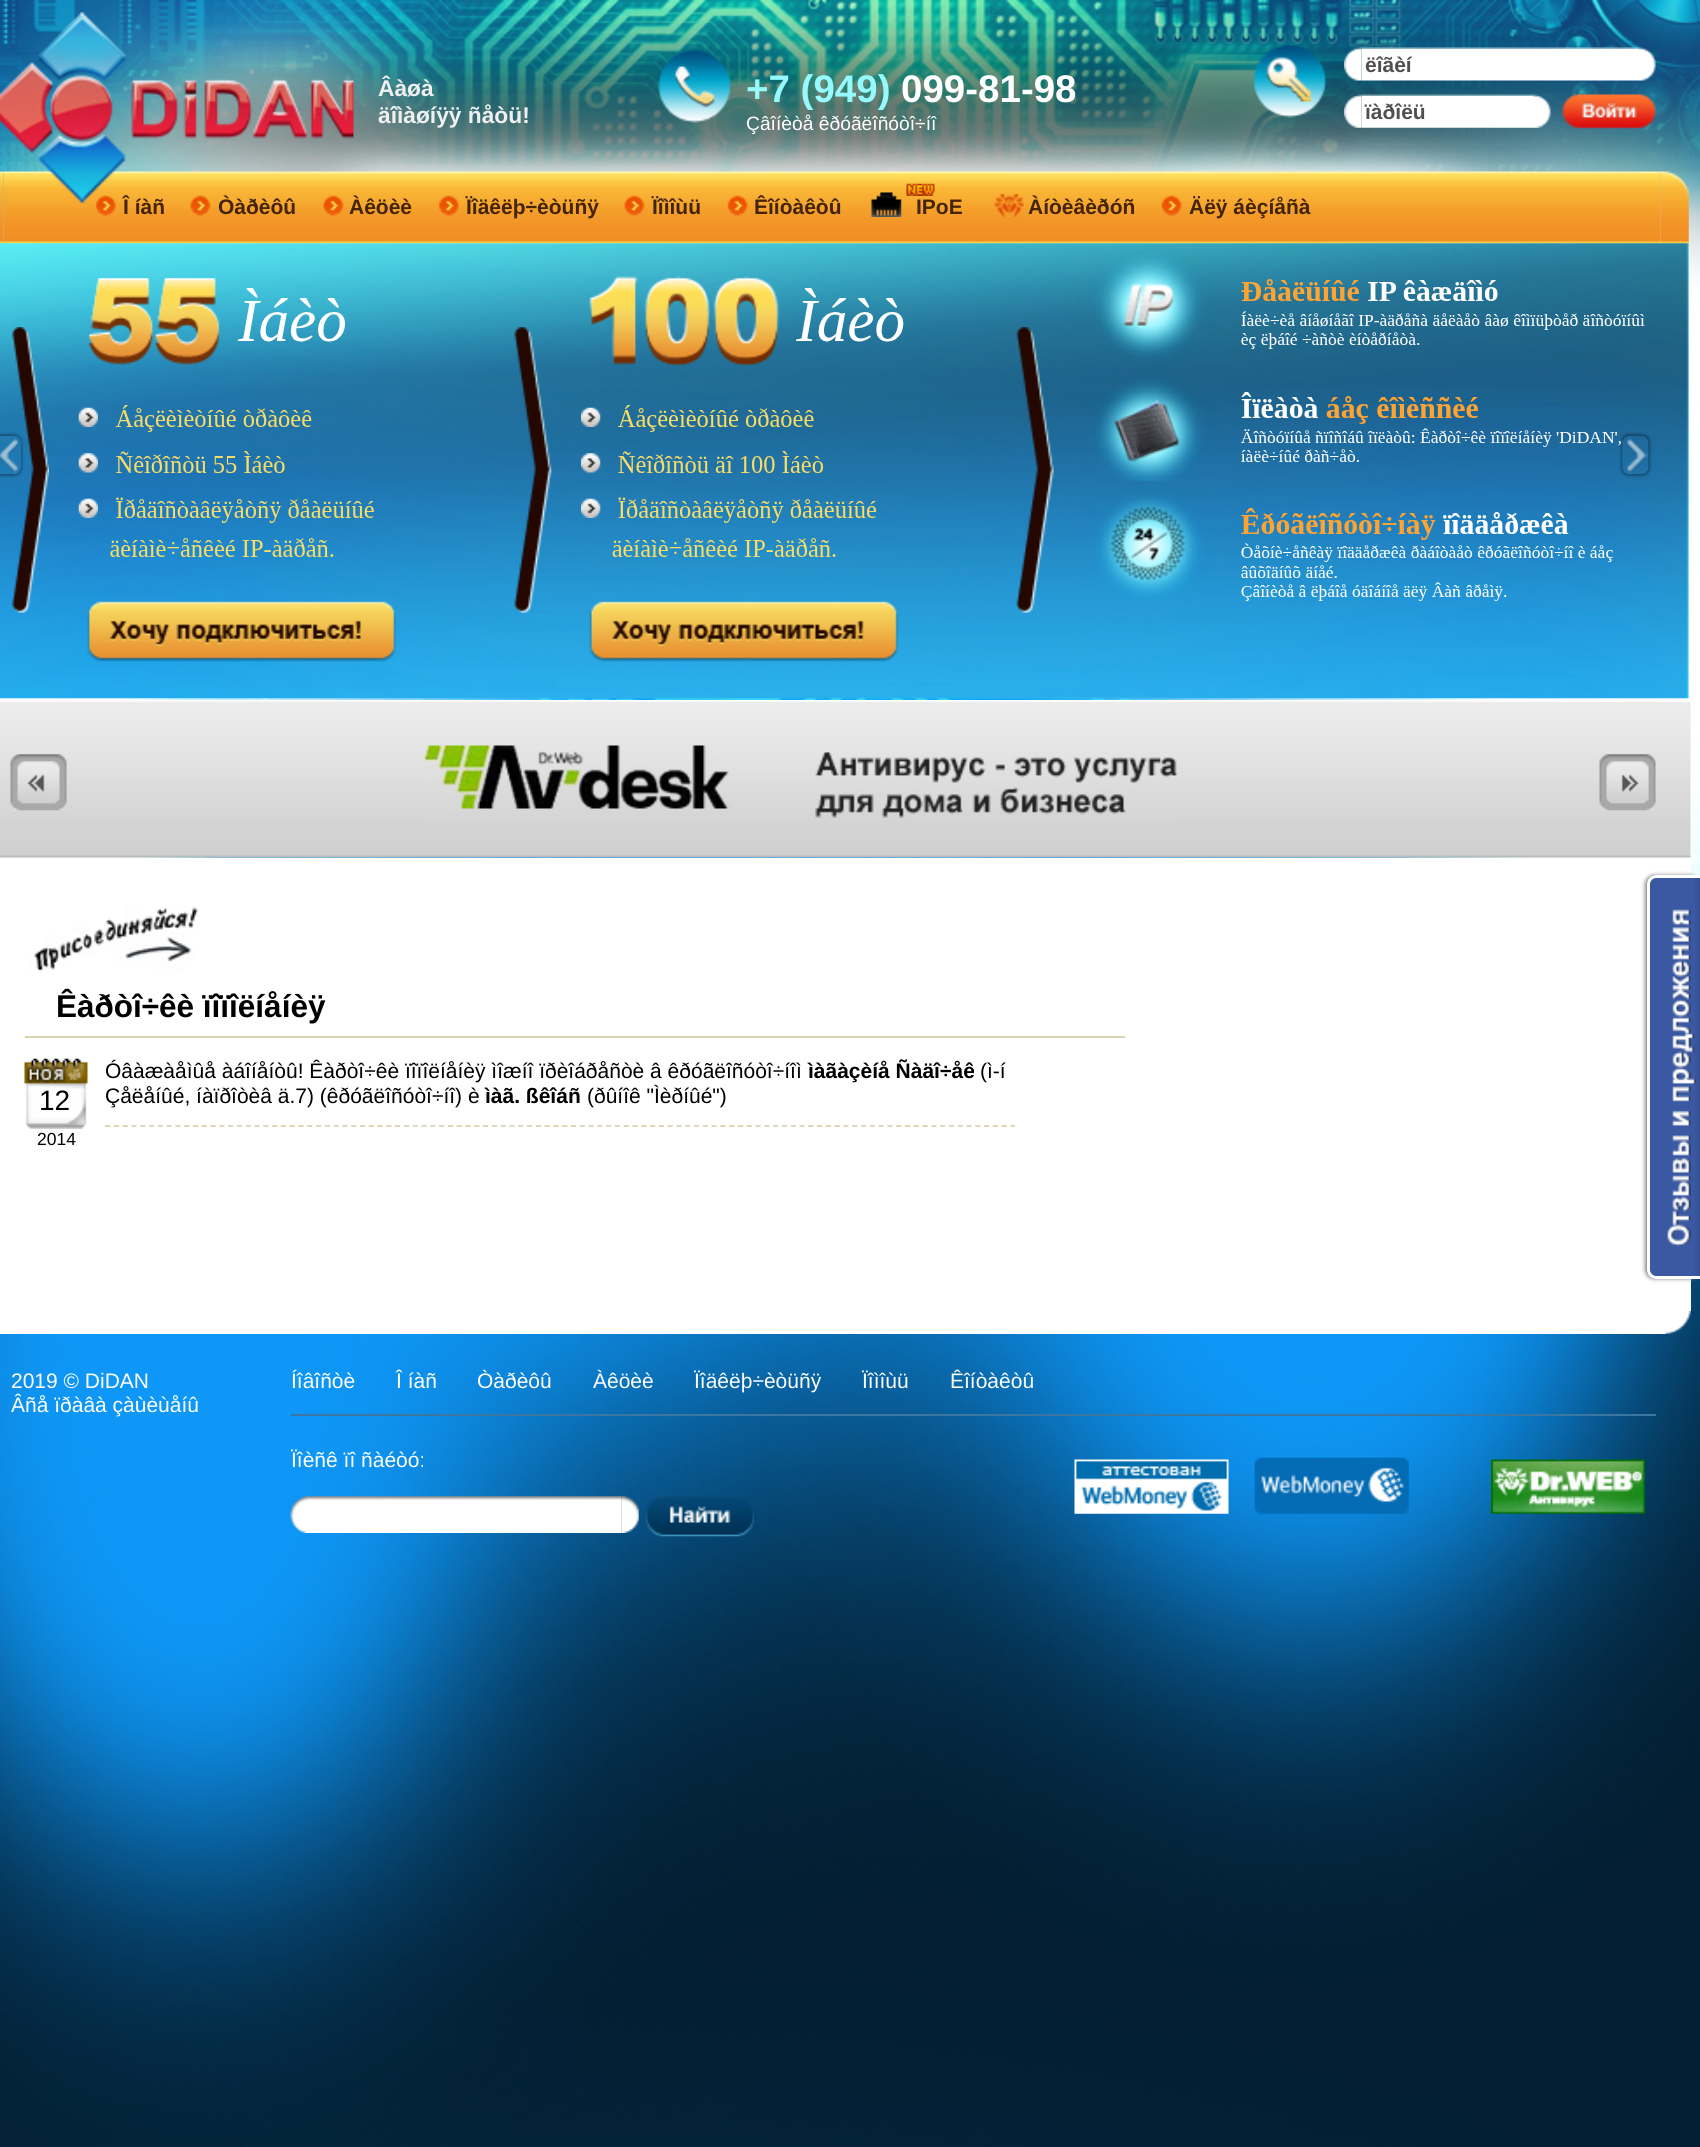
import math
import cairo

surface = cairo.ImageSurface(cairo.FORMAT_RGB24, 1700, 2147)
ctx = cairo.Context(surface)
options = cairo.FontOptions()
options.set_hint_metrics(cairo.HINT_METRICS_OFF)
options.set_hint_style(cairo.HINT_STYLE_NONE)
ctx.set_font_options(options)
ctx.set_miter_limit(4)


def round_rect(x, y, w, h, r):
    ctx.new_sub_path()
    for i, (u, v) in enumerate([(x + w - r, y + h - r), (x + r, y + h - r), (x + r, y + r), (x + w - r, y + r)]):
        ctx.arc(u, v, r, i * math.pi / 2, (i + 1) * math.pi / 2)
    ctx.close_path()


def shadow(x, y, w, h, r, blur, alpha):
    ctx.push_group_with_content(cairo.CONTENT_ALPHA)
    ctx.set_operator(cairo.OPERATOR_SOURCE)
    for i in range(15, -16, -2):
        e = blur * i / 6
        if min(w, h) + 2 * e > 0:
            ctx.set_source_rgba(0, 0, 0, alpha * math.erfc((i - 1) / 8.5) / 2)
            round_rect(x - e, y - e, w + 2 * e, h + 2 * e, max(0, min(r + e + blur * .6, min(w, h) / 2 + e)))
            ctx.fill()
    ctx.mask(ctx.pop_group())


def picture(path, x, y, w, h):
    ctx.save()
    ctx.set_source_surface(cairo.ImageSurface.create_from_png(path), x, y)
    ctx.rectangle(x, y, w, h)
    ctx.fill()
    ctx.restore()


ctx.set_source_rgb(1, 1, 1)
ctx.paint()
picture("img1.png", 0, 0, 1700, 2147)
picture("img12.png", 0, 171, 4, 73)
picture("img13.png", 3, 171, 1658, 73)
picture("img15.png", 95, 195, 21, 21)
ctx.select_font_face("Liberation Sans", cairo.FONT_SLANT_NORMAL, cairo.FONT_WEIGHT_BOLD)
ctx.set_font_size(21)
ctx.set_source_rgb(0.267, 0.137, 0.024)
ctx.move_to(123, 214)
ctx.show_text("Î íàñ")
picture("img16.png", 190, 195, 21, 21)
ctx.move_to(218, 214)
ctx.show_text("Òàðèôû")
picture("img17.png", 323, 195, 21, 21)
ctx.move_to(349, 214)
ctx.show_text("Àêöèè")
picture("img2.png", 0, 12, 354, 191)
ctx.set_font_size(22.75)
ctx.set_source_rgb(0.941, 0.941, 0.941)
ctx.move_to(378, 96)
ctx.show_text("Âàøà")
ctx.move_to(378, 123)
ctx.show_text("äîìàøíÿÿ ñåòü!")
picture("img3.png", 658, 49, 74, 74)
ctx.set_font_size(38.5)
ctx.set_source_rgb(0.584, 0.973, 0.992)
ctx.move_to(746, 102)
ctx.show_text("+7 (949)")
ctx.set_source_rgb(1, 1, 1)
ctx.move_to(901, 102)
ctx.show_text("099-81-98")
ctx.select_font_face("Liberation Sans")
ctx.set_font_size(19.25)
ctx.move_to(746, 130)
ctx.show_text("Çâîíèòå êðóãëîñóòî÷íî")
picture("img4.png", 1253, 44, 74, 74)
picture("img5.png", 1344, 47, 18, 34)
picture("img6.png", 1361, 47, 277, 34)
ctx.rectangle(1362, 49, 276, 1)
ctx.fill()
ctx.select_font_face("Liberation Sans", cairo.FONT_SLANT_NORMAL, cairo.FONT_WEIGHT_BOLD)
ctx.set_font_size(21)
ctx.set_source_rgb(0.314, 0.314, 0.314)
ctx.move_to(1365, 72)
ctx.show_text("ëîãèí")
picture("img7.png", 1638, 47, 18, 34)
picture("img8.png", 1344, 94, 18, 34)
picture("img9.png", 1361, 94, 172, 34)
ctx.set_source_rgb(1, 1, 1)
ctx.rectangle(1362, 96, 171, 1)
ctx.fill()
ctx.set_source_rgb(0.314, 0.314, 0.314)
ctx.move_to(1365, 119)
ctx.show_text("ïàðîëü")
picture("img10.png", 1533, 94, 18, 34)
picture("img11.png", 1562, 94, 94, 35)
picture("img14.png", 906, 183, 29, 13)
picture("img18.png", 438, 195, 21, 21)
ctx.set_source_rgb(0.267, 0.137, 0.024)
ctx.move_to(466, 214)
ctx.show_text("Ïîäêëþ÷èòüñÿ")
picture("img19.png", 624, 195, 21, 21)
ctx.move_to(652, 214)
ctx.show_text("Ïîìîùü")
picture("img20.png", 727, 195, 21, 21)
ctx.move_to(754, 214)
ctx.show_text("Êîíòàêòû")
picture("img21.png", 871, 192, 31, 25)
ctx.move_to(916, 214)
ctx.show_text("IPoE")
picture("img22.png", 994, 194, 30, 23)
ctx.move_to(1028, 214)
ctx.show_text("Àíòèâèðóñ")
picture("img23.png", 1161, 195, 21, 21)
ctx.move_to(1189, 214)
ctx.show_text("Äëÿ áèçíåñà")
picture("img24.png", 1660, 171, 29, 73)
picture("img25.png", 0, 243, 1689, 456)
picture("img26.png", 0, 700, 1691, 158)
picture("img27.png", 10, 754, 57, 57)
picture("img28.png", 424, 745, 754, 73)
picture("img29.png", 1599, 754, 57, 57)
ctx.set_source_rgb(1, 1, 1)
ctx.rectangle(0, 858, 1691, 453)
ctx.fill()
picture("img30.png", 28, 906, 171, 66)
ctx.set_source_rgb(0.855, 0.831, 0.694)
ctx.rectangle(25, 1036, 1100, 2)
ctx.fill()
ctx.set_font_size(31.5)
ctx.set_source_rgb(0, 0, 0)
ctx.move_to(56, 1017)
ctx.show_text("Êàðòî÷êè ïîïîëíåíèÿ")
ctx.new_path()
ctx.move_to(105, 1126)
ctx.line_to(1015, 1126)
ctx.set_source_rgb(0.855, 0.831, 0.694)
ctx.set_line_width(1.8)
ctx.set_dash([5.25, 3.54])
ctx.stroke()
ctx.select_font_face("Liberation Sans")
ctx.set_font_size(21)
ctx.set_source_rgb(0, 0, 0)
ctx.move_to(105, 1078)
ctx.show_text("Óâàæàåìûå àáîíåíòû! Êàðòî÷êè ïîïîëíåíèÿ ìîæíî ïðèîáðåñòè â êðóãëîñóòî÷íîì")
ctx.select_font_face("Liberation Sans", cairo.FONT_SLANT_NORMAL, cairo.FONT_WEIGHT_BOLD)
ctx.move_to(808, 1078)
ctx.show_text("ìàãàçèíå Ñàäî÷åê")
ctx.select_font_face("Liberation Sans")
ctx.move_to(980, 1078)
ctx.show_text("(ì-í")
ctx.move_to(105, 1103)
ctx.show_text("Çåëåíûé, íàïðîòèâ ä.7) (êðóãëîñóòî÷íî) è")
ctx.select_font_face("Liberation Sans", cairo.FONT_SLANT_NORMAL, cairo.FONT_WEIGHT_BOLD)
ctx.move_to(485, 1103)
ctx.show_text("ìàã. ßêîáñ")
ctx.select_font_face("Liberation Sans")
ctx.move_to(587, 1103)
ctx.show_text("(ðûíîê \"Ìèðíûé\")")
picture("img31.png", 24, 1058, 64, 71)
ctx.set_font_size(28)
ctx.move_to(39, 1110)
ctx.show_text("12")
ctx.set_font_size(17.5)
ctx.move_to(37, 1145)
ctx.show_text("2014")
ctx.set_source_rgb(1, 1, 1)
ctx.rectangle(0, 1311, 1666, 23)
ctx.fill()
picture("img32.png", 1666, 1311, 25, 23)
ctx.set_font_size(21)
ctx.move_to(11, 1388)
ctx.show_text("2019 © DiDAN")
ctx.move_to(11, 1412)
ctx.show_text("Âñå ïðàâà çàùèùåíû")
ctx.move_to(291, 1388)
ctx.show_text("Íîâîñòè")
ctx.move_to(396, 1388)
ctx.show_text("Î íàñ")
ctx.move_to(477, 1388)
ctx.show_text("Òàðèôû")
ctx.move_to(593, 1388)
ctx.show_text("Àêöèè")
ctx.move_to(694, 1388)
ctx.show_text("Ïîäêëþ÷èòüñÿ")
ctx.move_to(862, 1388)
ctx.show_text("Ïîìîùü")
ctx.move_to(950, 1388)
ctx.show_text("Êîíòàêòû")
ctx.set_source_rgb(0.231, 0.467, 0.631)
ctx.rectangle(291, 1414, 1365, 2)
ctx.fill()
ctx.set_source_rgb(1, 1, 1)
ctx.move_to(291, 1467)
ctx.show_text("Ïîèñê ïî ñàéòó:")
picture("img33.png", 290, 1496, 18, 37)
picture("img34.png", 308, 1496, 314, 37)
ctx.rectangle(308, 1500, 313, 1)
ctx.fill()
picture("img35.png", 621, 1496, 18, 37)
picture("img36.png", 646, 1496, 108, 41)
picture("img37.png", 1074, 1459, 155, 55)
picture("img38.png", 1254, 1457, 155, 57)
picture("img39.png", 1491, 1459, 154, 55)
ctx.set_source_rgb(0.533, 0.533, 0.533)
shadow(1645, 875, 54, 404, 9, 2, 1)
ctx.set_source_rgb(0.227, 0.349, 0.635)
ctx.new_path()
ctx.move_to(1656, 875)
ctx.line_to(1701, 875)
ctx.line_to(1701, 1279)
ctx.line_to(1656, 1279)
ctx.curve_to(1651, 1279, 1647, 1275, 1647, 1270)
ctx.line_to(1647, 884)
ctx.curve_to(1647, 879, 1651, 875, 1656, 875)
ctx.close_path()
ctx.fill()
picture("img40.png", 1695, 878, 5, 398)
ctx.set_source_rgb(1, 1, 1)
ctx.set_fill_rule(cairo.FILL_RULE_EVEN_ODD)
ctx.new_path()
ctx.move_to(1656, 875)
ctx.line_to(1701, 875)
ctx.line_to(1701, 1279)
ctx.line_to(1656, 1279)
ctx.curve_to(1651, 1279, 1647, 1275, 1647, 1270)
ctx.line_to(1647, 884)
ctx.curve_to(1647, 879, 1651, 875, 1656, 875)
ctx.close_path()
ctx.move_to(1656, 878)
ctx.line_to(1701, 878)
ctx.line_to(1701, 1276)
ctx.line_to(1656, 1276)
ctx.curve_to(1653, 1276, 1650, 1273, 1650, 1270)
ctx.line_to(1650, 884)
ctx.curve_to(1650, 881, 1653, 878, 1656, 878)
ctx.close_path()
ctx.fill()
picture("img41.png", 1667, 909, 29, 338)
surface.write_to_png("page.png")
